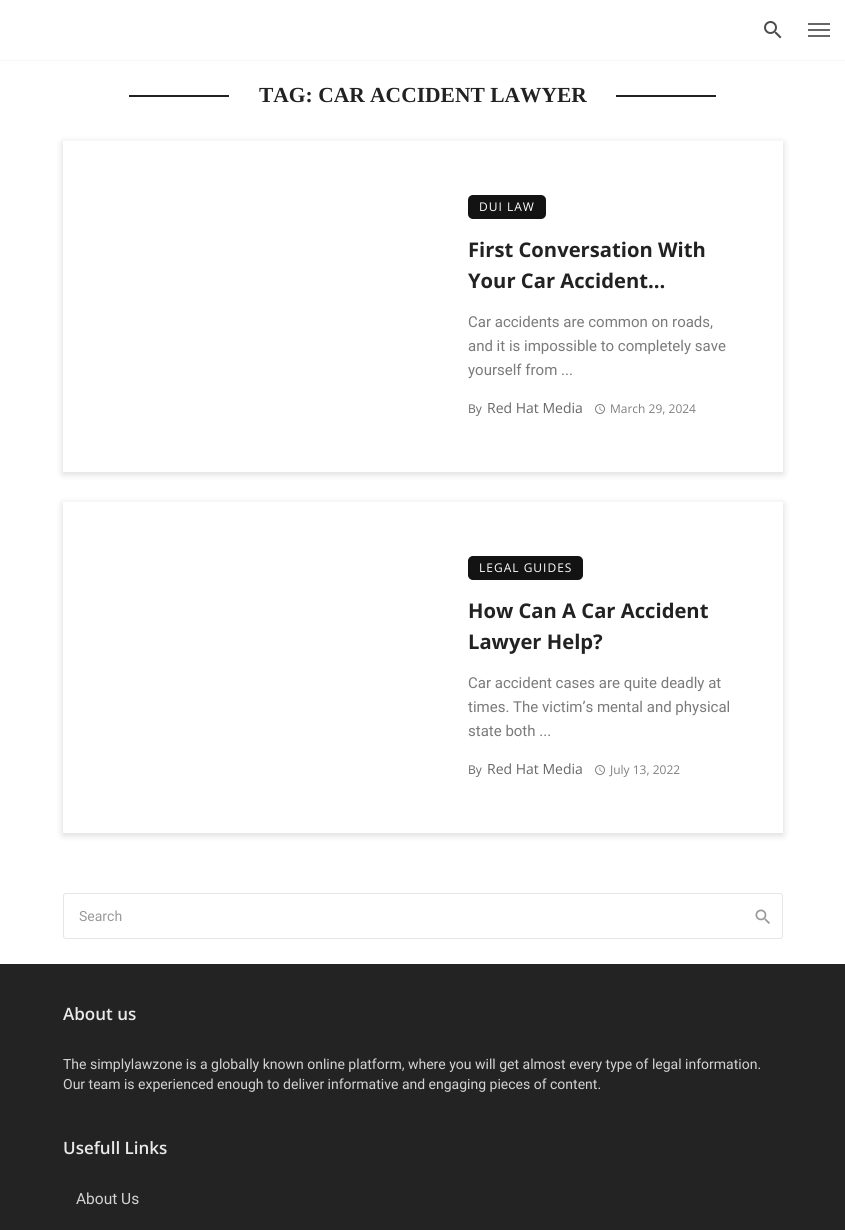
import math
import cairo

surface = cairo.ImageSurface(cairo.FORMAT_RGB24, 845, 1230)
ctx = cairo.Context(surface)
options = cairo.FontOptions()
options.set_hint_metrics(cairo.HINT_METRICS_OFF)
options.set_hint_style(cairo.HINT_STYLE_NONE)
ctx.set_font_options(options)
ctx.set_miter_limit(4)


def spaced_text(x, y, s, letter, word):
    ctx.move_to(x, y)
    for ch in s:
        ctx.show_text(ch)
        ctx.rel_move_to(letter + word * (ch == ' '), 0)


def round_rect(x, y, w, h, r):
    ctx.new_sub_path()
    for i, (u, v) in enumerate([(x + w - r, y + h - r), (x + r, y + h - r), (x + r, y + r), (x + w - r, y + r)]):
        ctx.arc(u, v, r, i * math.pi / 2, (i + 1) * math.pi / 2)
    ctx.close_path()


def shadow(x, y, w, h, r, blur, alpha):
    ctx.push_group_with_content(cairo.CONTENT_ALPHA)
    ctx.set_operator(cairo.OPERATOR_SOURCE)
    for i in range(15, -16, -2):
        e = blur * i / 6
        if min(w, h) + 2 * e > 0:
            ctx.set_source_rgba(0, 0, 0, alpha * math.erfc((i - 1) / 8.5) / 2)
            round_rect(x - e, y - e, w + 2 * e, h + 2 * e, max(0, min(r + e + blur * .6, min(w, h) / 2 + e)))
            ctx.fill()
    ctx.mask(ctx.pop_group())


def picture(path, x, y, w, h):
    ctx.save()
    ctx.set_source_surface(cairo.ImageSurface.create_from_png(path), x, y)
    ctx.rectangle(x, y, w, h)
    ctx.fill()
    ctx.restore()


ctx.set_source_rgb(1, 1, 1)
ctx.paint()
ctx.set_source_rgb(0.961, 0.961, 0.961)
ctx.rectangle(0, 60, 845, 1)
ctx.fill()
picture("img1.png", 764, 21, 18, 18)
ctx.set_source_rgb(0.404, 0.404, 0.404)
ctx.rectangle(808, 29, 22, 2)
ctx.fill()
ctx.rectangle(808, 23, 22, 2)
ctx.fill()
ctx.rectangle(808, 35, 22, 2)
ctx.fill()
ctx.set_source_rgb(0.133, 0.133, 0.133)
ctx.rectangle(129, 95, 100, 2)
ctx.fill()
ctx.select_font_face("Liberation Serif", cairo.FONT_SLANT_NORMAL, cairo.FONT_WEIGHT_BOLD)
ctx.set_font_size(21.5)
ctx.move_to(259, 102)
ctx.show_text("TAG: CAR ACCIDENT LAWYER")
ctx.rectangle(616, 95, 100, 2)
ctx.fill()
ctx.save()
ctx.set_fill_rule(cairo.FILL_RULE_EVEN_ODD)
ctx.new_path()
ctx.move_to(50, 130)
ctx.line_to(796, 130)
ctx.line_to(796, 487)
ctx.line_to(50, 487)
ctx.close_path()
ctx.move_to(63, 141)
ctx.line_to(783, 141)
ctx.line_to(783, 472)
ctx.line_to(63, 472)
ctx.close_path()
ctx.clip()
ctx.set_source_rgb(0, 0, 0)
shadow(63, 143, 720, 331, 0, 4, 0.15)
ctx.restore()
ctx.set_source_rgb(0.075, 0.075, 0.075)
round_rect(468, 195, 78, 24, 5)
ctx.fill()
ctx.select_font_face("Open Sans")
ctx.set_font_size(12)
ctx.set_source_rgb(1, 1, 1)
spaced_text(479, 211, "DUI LAW", 1, 0)
ctx.select_font_face("Open Sans", cairo.FONT_SLANT_NORMAL, cairo.FONT_WEIGHT_BOLD)
ctx.set_font_size(20.2)
ctx.set_source_rgb(0.133, 0.133, 0.133)
ctx.move_to(468, 257)
ctx.show_text("First Conversation With")
ctx.move_to(468, 288)
ctx.show_text("Your Car Accident…")
ctx.select_font_face("Roboto")
ctx.set_font_size(15)
ctx.set_source_rgb(0.478, 0.478, 0.478)
ctx.move_to(468, 327)
ctx.show_text("Car accidents are common on roads,")
ctx.move_to(468, 351)
ctx.show_text("and it is impossible to completely save")
ctx.move_to(468, 375)
ctx.show_text("yourself from ...")
ctx.select_font_face("Open Sans")
ctx.set_font_size(12)
ctx.set_source_rgb(0.4, 0.4, 0.4)
ctx.move_to(468, 413)
ctx.show_text("By")
ctx.set_font_size(14)
ctx.move_to(487, 413)
ctx.show_text("Red Hat Media")
picture("img2.png", 595, 404, 10, 10)
ctx.set_font_size(12)
ctx.set_source_rgb(0.502, 0.502, 0.502)
ctx.move_to(610, 413)
ctx.show_text("March 29, 2024")
ctx.save()
ctx.set_fill_rule(cairo.FILL_RULE_EVEN_ODD)
ctx.new_path()
ctx.move_to(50, 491)
ctx.line_to(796, 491)
ctx.line_to(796, 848)
ctx.line_to(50, 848)
ctx.close_path()
ctx.move_to(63, 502)
ctx.line_to(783, 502)
ctx.line_to(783, 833)
ctx.line_to(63, 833)
ctx.close_path()
ctx.clip()
ctx.set_source_rgb(0, 0, 0)
shadow(63, 504, 720, 331, 0, 4, 0.15)
ctx.restore()
ctx.set_source_rgb(0.075, 0.075, 0.075)
round_rect(468, 556, 115, 24, 5)
ctx.fill()
ctx.set_source_rgb(1, 1, 1)
spaced_text(479, 572, "LEGAL GUIDES", 1, 0)
ctx.select_font_face("Open Sans", cairo.FONT_SLANT_NORMAL, cairo.FONT_WEIGHT_BOLD)
ctx.set_font_size(20.2)
ctx.set_source_rgb(0.133, 0.133, 0.133)
ctx.move_to(468, 618)
ctx.show_text("How Can A Car Accident")
ctx.move_to(468, 649)
ctx.show_text("Lawyer Help?")
ctx.select_font_face("Roboto")
ctx.set_font_size(15)
ctx.set_source_rgb(0.478, 0.478, 0.478)
ctx.move_to(468, 688)
ctx.show_text("Car accident cases are quite deadly at")
ctx.move_to(468, 712)
ctx.show_text("times. The victim’s mental and physical")
ctx.move_to(468, 736)
ctx.show_text("state both ...")
ctx.select_font_face("Open Sans")
ctx.set_font_size(12)
ctx.set_source_rgb(0.4, 0.4, 0.4)
ctx.move_to(468, 774)
ctx.show_text("By")
ctx.set_font_size(14)
ctx.move_to(487, 774)
ctx.show_text("Red Hat Media")
picture("img2.png", 595, 765, 10, 10)
ctx.set_font_size(12)
ctx.set_source_rgb(0.502, 0.502, 0.502)
ctx.move_to(610, 774)
ctx.show_text("July 13, 2022")
round_rect(63.5, 893.5, 719, 45, 2.5)
ctx.set_source_rgb(0.902, 0.902, 0.902)
ctx.set_line_width(1)
ctx.stroke()
ctx.select_font_face("Roboto")
ctx.set_font_size(14)
ctx.set_source_rgb(0.6, 0.6, 0.6)
ctx.move_to(79, 921)
ctx.show_text("Search")
picture("img3.png", 755, 909, 15, 15)
ctx.set_source_rgb(0.137, 0.137, 0.137)
ctx.rectangle(0, 964, 845, 266)
ctx.fill()
ctx.select_font_face("Open Sans SemiBold")
ctx.set_font_size(17)
ctx.set_source_rgb(0.914, 0.914, 0.914)
ctx.move_to(63, 1020)
ctx.show_text("About us")
ctx.select_font_face("Roboto")
ctx.set_font_size(14)
ctx.set_source_rgb(0.827, 0.827, 0.827)
ctx.move_to(63, 1069)
ctx.show_text("The simplylawzone is a globally known online platform, where you will get almost every type of legal information.")
ctx.move_to(63, 1089)
ctx.show_text("Our team is experienced enough to deliver informative and engaging pieces of content.")
ctx.select_font_face("Open Sans SemiBold")
ctx.set_font_size(17)
ctx.set_source_rgb(0.914, 0.914, 0.914)
ctx.move_to(63, 1154)
ctx.show_text("Usefull Links")
ctx.select_font_face("Roboto")
ctx.set_font_size(15.5)
ctx.set_source_rgb(0.827, 0.827, 0.827)
ctx.move_to(76, 1204)
ctx.show_text("About Us")
surface.write_to_png("page.png")
